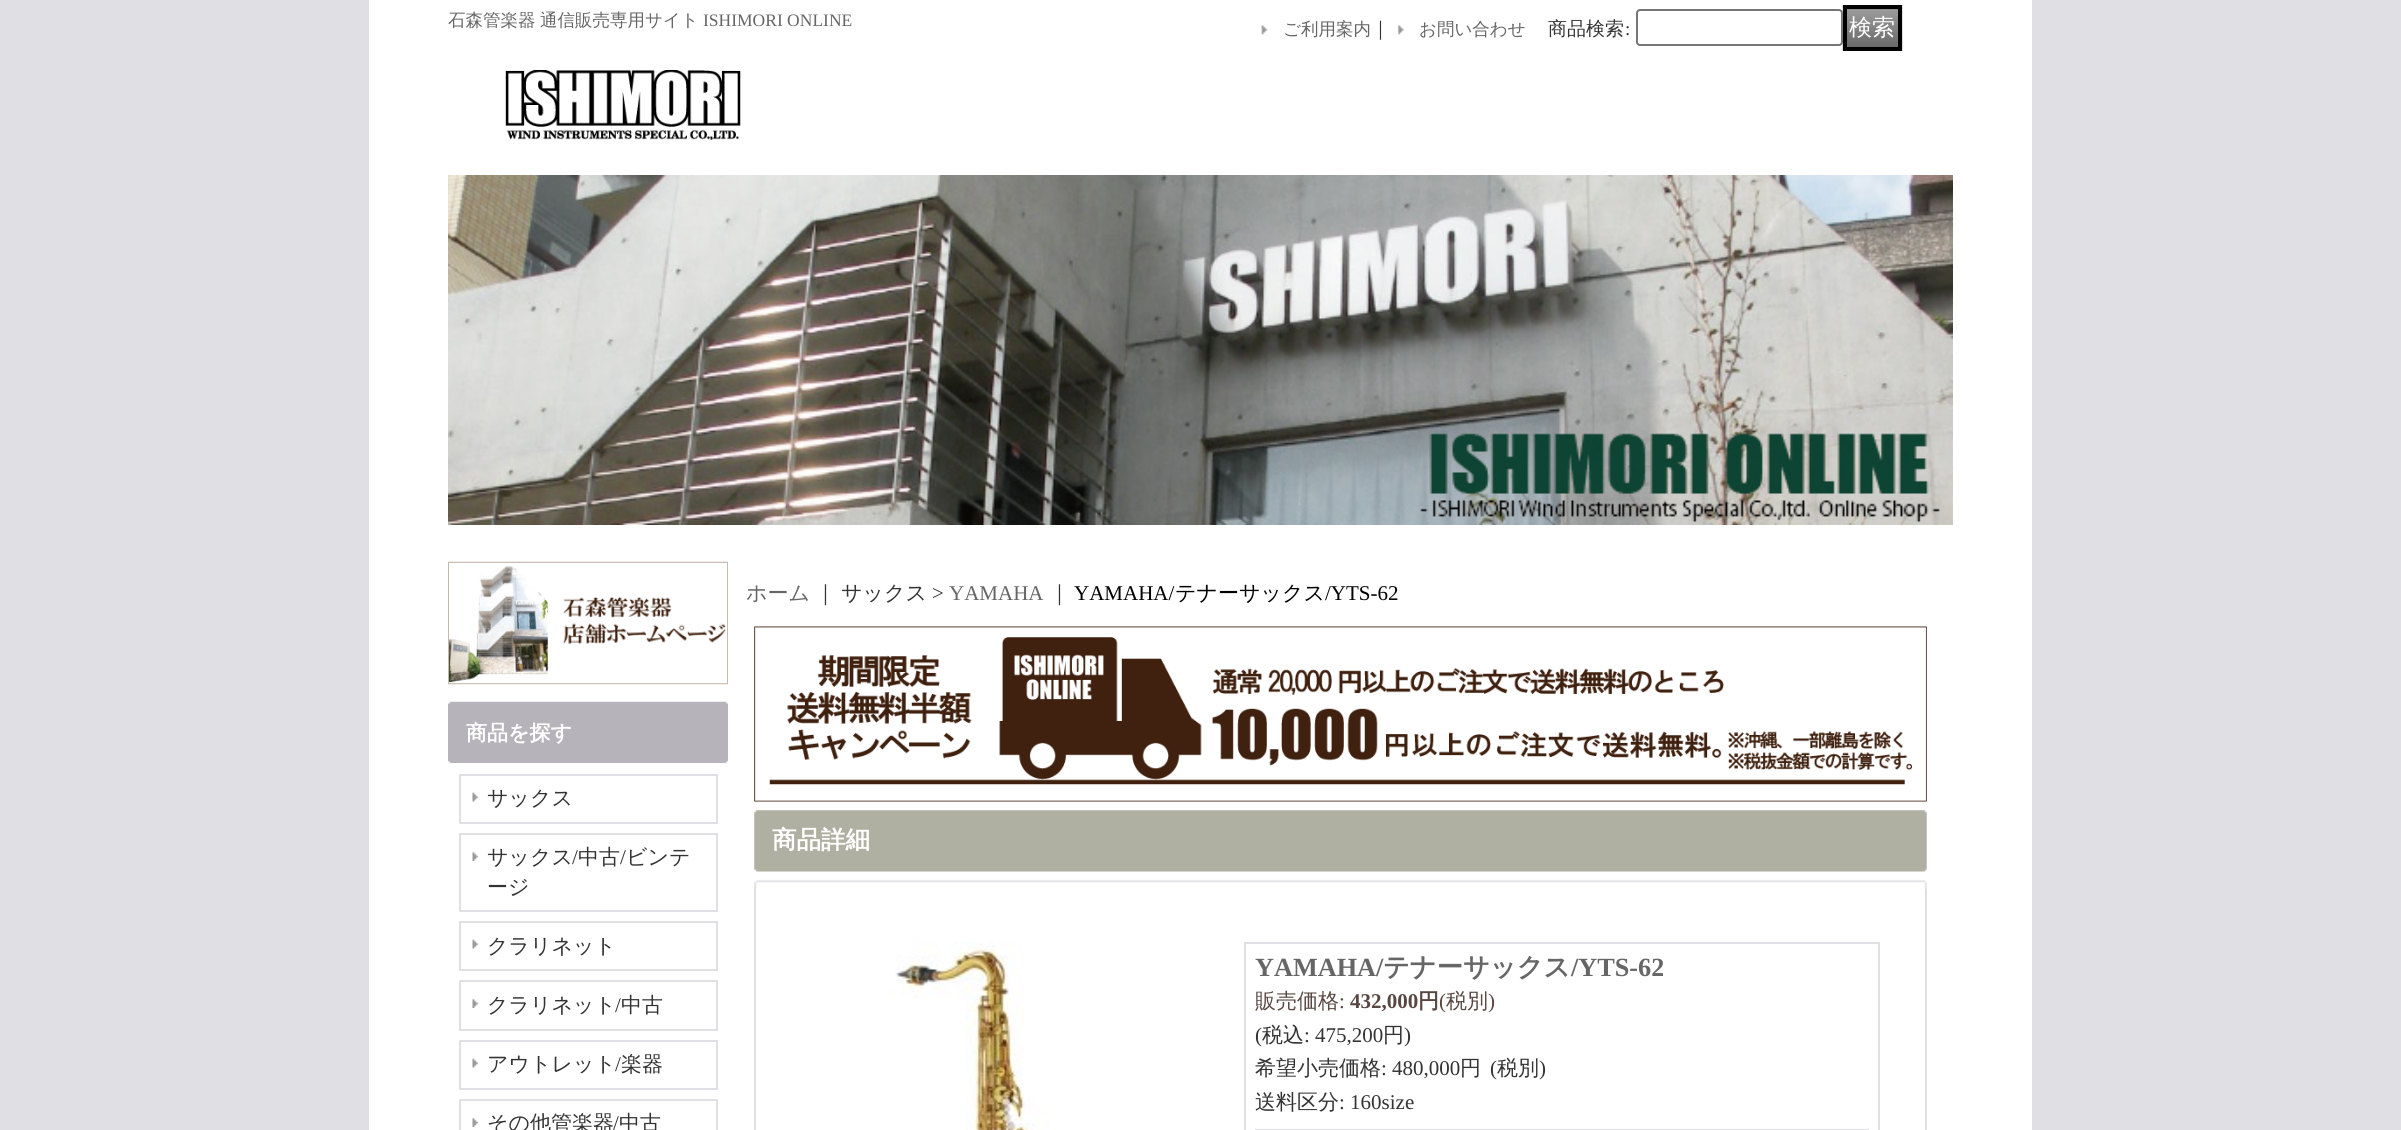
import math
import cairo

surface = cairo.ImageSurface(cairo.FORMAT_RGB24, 2401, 1130)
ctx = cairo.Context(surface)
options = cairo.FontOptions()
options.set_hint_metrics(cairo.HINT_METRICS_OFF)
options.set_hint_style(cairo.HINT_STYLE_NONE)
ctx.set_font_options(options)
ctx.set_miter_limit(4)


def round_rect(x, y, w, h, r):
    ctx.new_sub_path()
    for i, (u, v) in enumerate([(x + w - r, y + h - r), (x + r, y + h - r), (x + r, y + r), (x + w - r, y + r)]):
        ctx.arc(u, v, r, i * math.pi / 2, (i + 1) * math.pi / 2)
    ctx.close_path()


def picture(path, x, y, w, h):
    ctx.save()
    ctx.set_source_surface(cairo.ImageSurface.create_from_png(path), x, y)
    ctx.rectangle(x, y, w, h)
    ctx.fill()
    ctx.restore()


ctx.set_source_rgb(0.878, 0.875, 0.89)
ctx.paint()
ctx.set_source_rgb(1, 1, 1)
ctx.rectangle(369, 0, 1663, 1130)
ctx.fill()
picture("img1.png", 448, 175, 1505, 350)
ctx.select_font_face("WenQuanYi Zen Hei Medium")
ctx.set_font_size(17.5)
ctx.set_source_rgb(0.4, 0.4, 0.4)
ctx.move_to(448, 26)
ctx.show_text("石森管楽器")
ctx.move_to(540, 26)
ctx.show_text("通信販売専用サイト")
ctx.select_font_face("Liberation Serif")
ctx.move_to(703, 26)
ctx.show_text("ISHIMORI ONLINE")
picture("img2.png", 1261, 25, 7, 10)
ctx.select_font_face("WenQuanYi Zen Hei Medium")
ctx.move_to(1283, 35)
ctx.show_text("ご利用案内")
ctx.set_font_size(19)
ctx.set_source_rgb(0.2, 0.2, 0.2)
ctx.move_to(1371, 35)
ctx.show_text("｜")
picture("img3.png", 1397, 25, 7, 10)
ctx.set_font_size(17.5)
ctx.set_source_rgb(0.4, 0.4, 0.4)
ctx.move_to(1419, 35)
ctx.show_text("お問い合わせ")
ctx.set_font_size(19)
ctx.set_source_rgb(0.2, 0.2, 0.2)
ctx.move_to(1548, 35)
ctx.show_text("商品検索")
ctx.select_font_face("Liberation Serif")
ctx.move_to(1625, 35)
ctx.show_text(":")
round_rect(1637, 10, 205, 35, 3)
ctx.set_source_rgb(0.463, 0.463, 0.463)
ctx.stroke()
picture("img4.png", 1842, 5, 61, 46)
ctx.rectangle(1845, 7, 55, 42)
ctx.set_source_rgb(0, 0, 0)
ctx.set_line_width(4)
ctx.stroke()
ctx.select_font_face("WenQuanYi Zen Hei Medium")
ctx.set_font_size(23)
ctx.set_source_rgb(1, 1, 1)
ctx.move_to(1849, 35)
ctx.show_text("検索")
picture("img5.png", 505, 70, 236, 70)
picture("img6.png", 448, 561, 280, 124)
picture("img7.png", 448, 701, 280, 62)
ctx.select_font_face("WenQuanYi Zen Hei", cairo.FONT_SLANT_NORMAL, cairo.FONT_WEIGHT_BOLD)
ctx.set_font_size(21)
ctx.move_to(466, 740)
ctx.show_text("商品を探す")
picture("img8.png", 472, 792, 7, 10)
ctx.rectangle(460, 775, 257, 48)
ctx.set_source_rgb(0.878, 0.875, 0.89)
ctx.set_line_width(2)
ctx.stroke()
ctx.select_font_face("WenQuanYi Zen Hei Medium")
ctx.set_source_rgb(0.2, 0.2, 0.2)
ctx.move_to(487, 805)
ctx.show_text("サックス")
picture("img9.png", 472, 851, 7, 10)
ctx.rectangle(460, 834, 257, 77)
ctx.set_source_rgb(0.878, 0.875, 0.89)
ctx.stroke()
ctx.set_source_rgb(0.2, 0.2, 0.2)
ctx.move_to(487, 864)
ctx.show_text("サックス")
ctx.select_font_face("Liberation Serif")
ctx.move_to(572, 864)
ctx.show_text("/")
ctx.select_font_face("WenQuanYi Zen Hei Medium")
ctx.move_to(578, 864)
ctx.show_text("中古")
ctx.select_font_face("Liberation Serif")
ctx.move_to(620, 864)
ctx.show_text("/")
ctx.select_font_face("WenQuanYi Zen Hei Medium")
ctx.move_to(626, 864)
ctx.show_text("ビンテ")
ctx.move_to(487, 894)
ctx.show_text("ージ")
picture("img8.png", 472, 939, 7, 10)
ctx.rectangle(460, 922, 257, 48)
ctx.set_source_rgb(0.878, 0.875, 0.89)
ctx.stroke()
ctx.set_source_rgb(0.2, 0.2, 0.2)
ctx.move_to(487, 953)
ctx.show_text("クラリネット")
picture("img9.png", 472, 998, 7, 10)
ctx.rectangle(460, 981, 257, 49)
ctx.set_source_rgb(0.878, 0.875, 0.89)
ctx.stroke()
ctx.set_source_rgb(0.2, 0.2, 0.2)
ctx.move_to(487, 1012)
ctx.show_text("クラリネット")
ctx.select_font_face("Liberation Serif")
ctx.move_to(615, 1012)
ctx.show_text("/")
ctx.select_font_face("WenQuanYi Zen Hei Medium")
ctx.move_to(621, 1012)
ctx.show_text("中古")
picture("img8.png", 472, 1058, 7, 10)
ctx.rectangle(460, 1041, 257, 48)
ctx.set_source_rgb(0.878, 0.875, 0.89)
ctx.stroke()
ctx.set_source_rgb(0.2, 0.2, 0.2)
ctx.move_to(487, 1071)
ctx.show_text("アウトレット")
ctx.select_font_face("Liberation Serif")
ctx.move_to(615, 1071)
ctx.show_text("/")
ctx.select_font_face("WenQuanYi Zen Hei Medium")
ctx.move_to(621, 1071)
ctx.show_text("楽器")
picture("img9.png", 472, 1117, 7, 10)
ctx.rectangle(460, 1100, 257, 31)
ctx.set_source_rgb(0.878, 0.875, 0.89)
ctx.stroke()
ctx.set_source_rgb(0.2, 0.2, 0.2)
ctx.move_to(487, 1130)
ctx.show_text("その他管楽器")
ctx.select_font_face("Liberation Serif")
ctx.move_to(613, 1130)
ctx.show_text("/")
ctx.select_font_face("WenQuanYi Zen Hei Medium")
ctx.move_to(619, 1130)
ctx.show_text("中古")
ctx.set_source_rgb(0.4, 0.4, 0.4)
ctx.move_to(746, 600)
ctx.show_text("ホーム")
ctx.set_source_rgb(0.2, 0.2, 0.2)
ctx.move_to(815, 600)
ctx.show_text("｜")
ctx.move_to(841, 600)
ctx.show_text("サックス")
ctx.select_font_face("Liberation Serif")
ctx.move_to(932, 600)
ctx.show_text(">")
ctx.set_source_rgb(0.4, 0.4, 0.4)
ctx.move_to(949, 600)
ctx.show_text("YAMAHA")
ctx.select_font_face("WenQuanYi Zen Hei Medium")
ctx.set_source_rgb(0.2, 0.2, 0.2)
ctx.move_to(1049, 600)
ctx.show_text("｜")
ctx.select_font_face("Liberation Serif")
ctx.set_source_rgb(0, 0, 0)
ctx.move_to(1074, 600)
ctx.show_text("YAMAHA/")
ctx.select_font_face("WenQuanYi Zen Hei Medium")
ctx.move_to(1175, 600)
ctx.show_text("テナーサックス")
ctx.select_font_face("Liberation Serif")
ctx.move_to(1325, 600)
ctx.show_text("/YTS-62")
picture("img10.png", 754, 626, 1173, 176)
picture("img11.png", 754, 810, 1173, 79)
ctx.select_font_face("WenQuanYi Zen Hei", cairo.FONT_SLANT_NORMAL, cairo.FONT_WEIGHT_BOLD)
ctx.set_font_size(24.5)
ctx.set_source_rgb(1, 1, 1)
ctx.move_to(772, 848)
ctx.show_text("商品詳細")
ctx.set_source_rgb(0.878, 0.875, 0.89)
ctx.rectangle(1925, 889, 2, 241)
ctx.fill()
ctx.rectangle(754, 889, 2, 241)
ctx.fill()
picture("img12.png", 890, 941, 160, 189)
ctx.rectangle(1245, 943, 634, 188)
ctx.stroke()
ctx.select_font_face("Liberation Serif", cairo.FONT_SLANT_NORMAL, cairo.FONT_WEIGHT_BOLD)
ctx.set_font_size(26.25)
ctx.set_source_rgb(0.4, 0.4, 0.4)
ctx.move_to(1255, 976)
ctx.show_text("YAMAHA/")
ctx.select_font_face("WenQuanYi Zen Hei", cairo.FONT_SLANT_NORMAL, cairo.FONT_WEIGHT_BOLD)
ctx.move_to(1383, 976)
ctx.show_text("テナーサックス")
ctx.select_font_face("Liberation Serif", cairo.FONT_SLANT_NORMAL, cairo.FONT_WEIGHT_BOLD)
ctx.move_to(1571, 976)
ctx.show_text("/YTS-62")
ctx.select_font_face("WenQuanYi Zen Hei Medium")
ctx.set_font_size(21)
ctx.set_source_rgb(0.345, 0.275, 0.255)
ctx.move_to(1255, 1008)
ctx.show_text("販売価格")
ctx.select_font_face("Liberation Serif")
ctx.move_to(1339, 1008)
ctx.show_text(":")
ctx.select_font_face("Liberation Serif", cairo.FONT_SLANT_NORMAL, cairo.FONT_WEIGHT_BOLD)
ctx.move_to(1350, 1008)
ctx.show_text("432,000")
ctx.select_font_face("WenQuanYi Zen Hei", cairo.FONT_SLANT_NORMAL, cairo.FONT_WEIGHT_BOLD)
ctx.move_to(1418, 1008)
ctx.show_text("円")
ctx.select_font_face("Liberation Serif")
ctx.move_to(1439, 1008)
ctx.show_text("(")
ctx.select_font_face("WenQuanYi Zen Hei Medium")
ctx.move_to(1446, 1008)
ctx.show_text("税別")
ctx.select_font_face("Liberation Serif")
ctx.move_to(1488, 1008)
ctx.show_text(")")
ctx.set_source_rgb(0.2, 0.2, 0.2)
ctx.move_to(1255, 1042)
ctx.show_text("(")
ctx.select_font_face("WenQuanYi Zen Hei Medium")
ctx.move_to(1262, 1042)
ctx.show_text("税込")
ctx.select_font_face("Liberation Serif")
ctx.move_to(1304, 1042)
ctx.show_text(": 475,200")
ctx.select_font_face("WenQuanYi Zen Hei Medium")
ctx.move_to(1383, 1042)
ctx.show_text("円")
ctx.select_font_face("Liberation Serif")
ctx.move_to(1404, 1042)
ctx.show_text(")")
ctx.select_font_face("WenQuanYi Zen Hei Medium")
ctx.move_to(1255, 1075)
ctx.show_text("希望小売価格")
ctx.select_font_face("Liberation Serif")
ctx.move_to(1381, 1075)
ctx.show_text(": 480,000")
ctx.select_font_face("WenQuanYi Zen Hei Medium")
ctx.move_to(1460, 1075)
ctx.show_text("円")
ctx.select_font_face("Liberation Serif")
ctx.move_to(1490, 1075)
ctx.show_text("(")
ctx.select_font_face("WenQuanYi Zen Hei Medium")
ctx.move_to(1497, 1075)
ctx.show_text("税別")
ctx.select_font_face("Liberation Serif")
ctx.move_to(1539, 1075)
ctx.show_text(")")
ctx.select_font_face("WenQuanYi Zen Hei Medium")
ctx.move_to(1255, 1109)
ctx.show_text("送料区分")
ctx.select_font_face("Liberation Serif")
ctx.move_to(1339, 1109)
ctx.show_text(": 160size")
ctx.set_source_rgb(0.878, 0.875, 0.89)
ctx.rectangle(1255, 1129, 614, 1)
ctx.fill()
surface.write_to_png("page.png")
